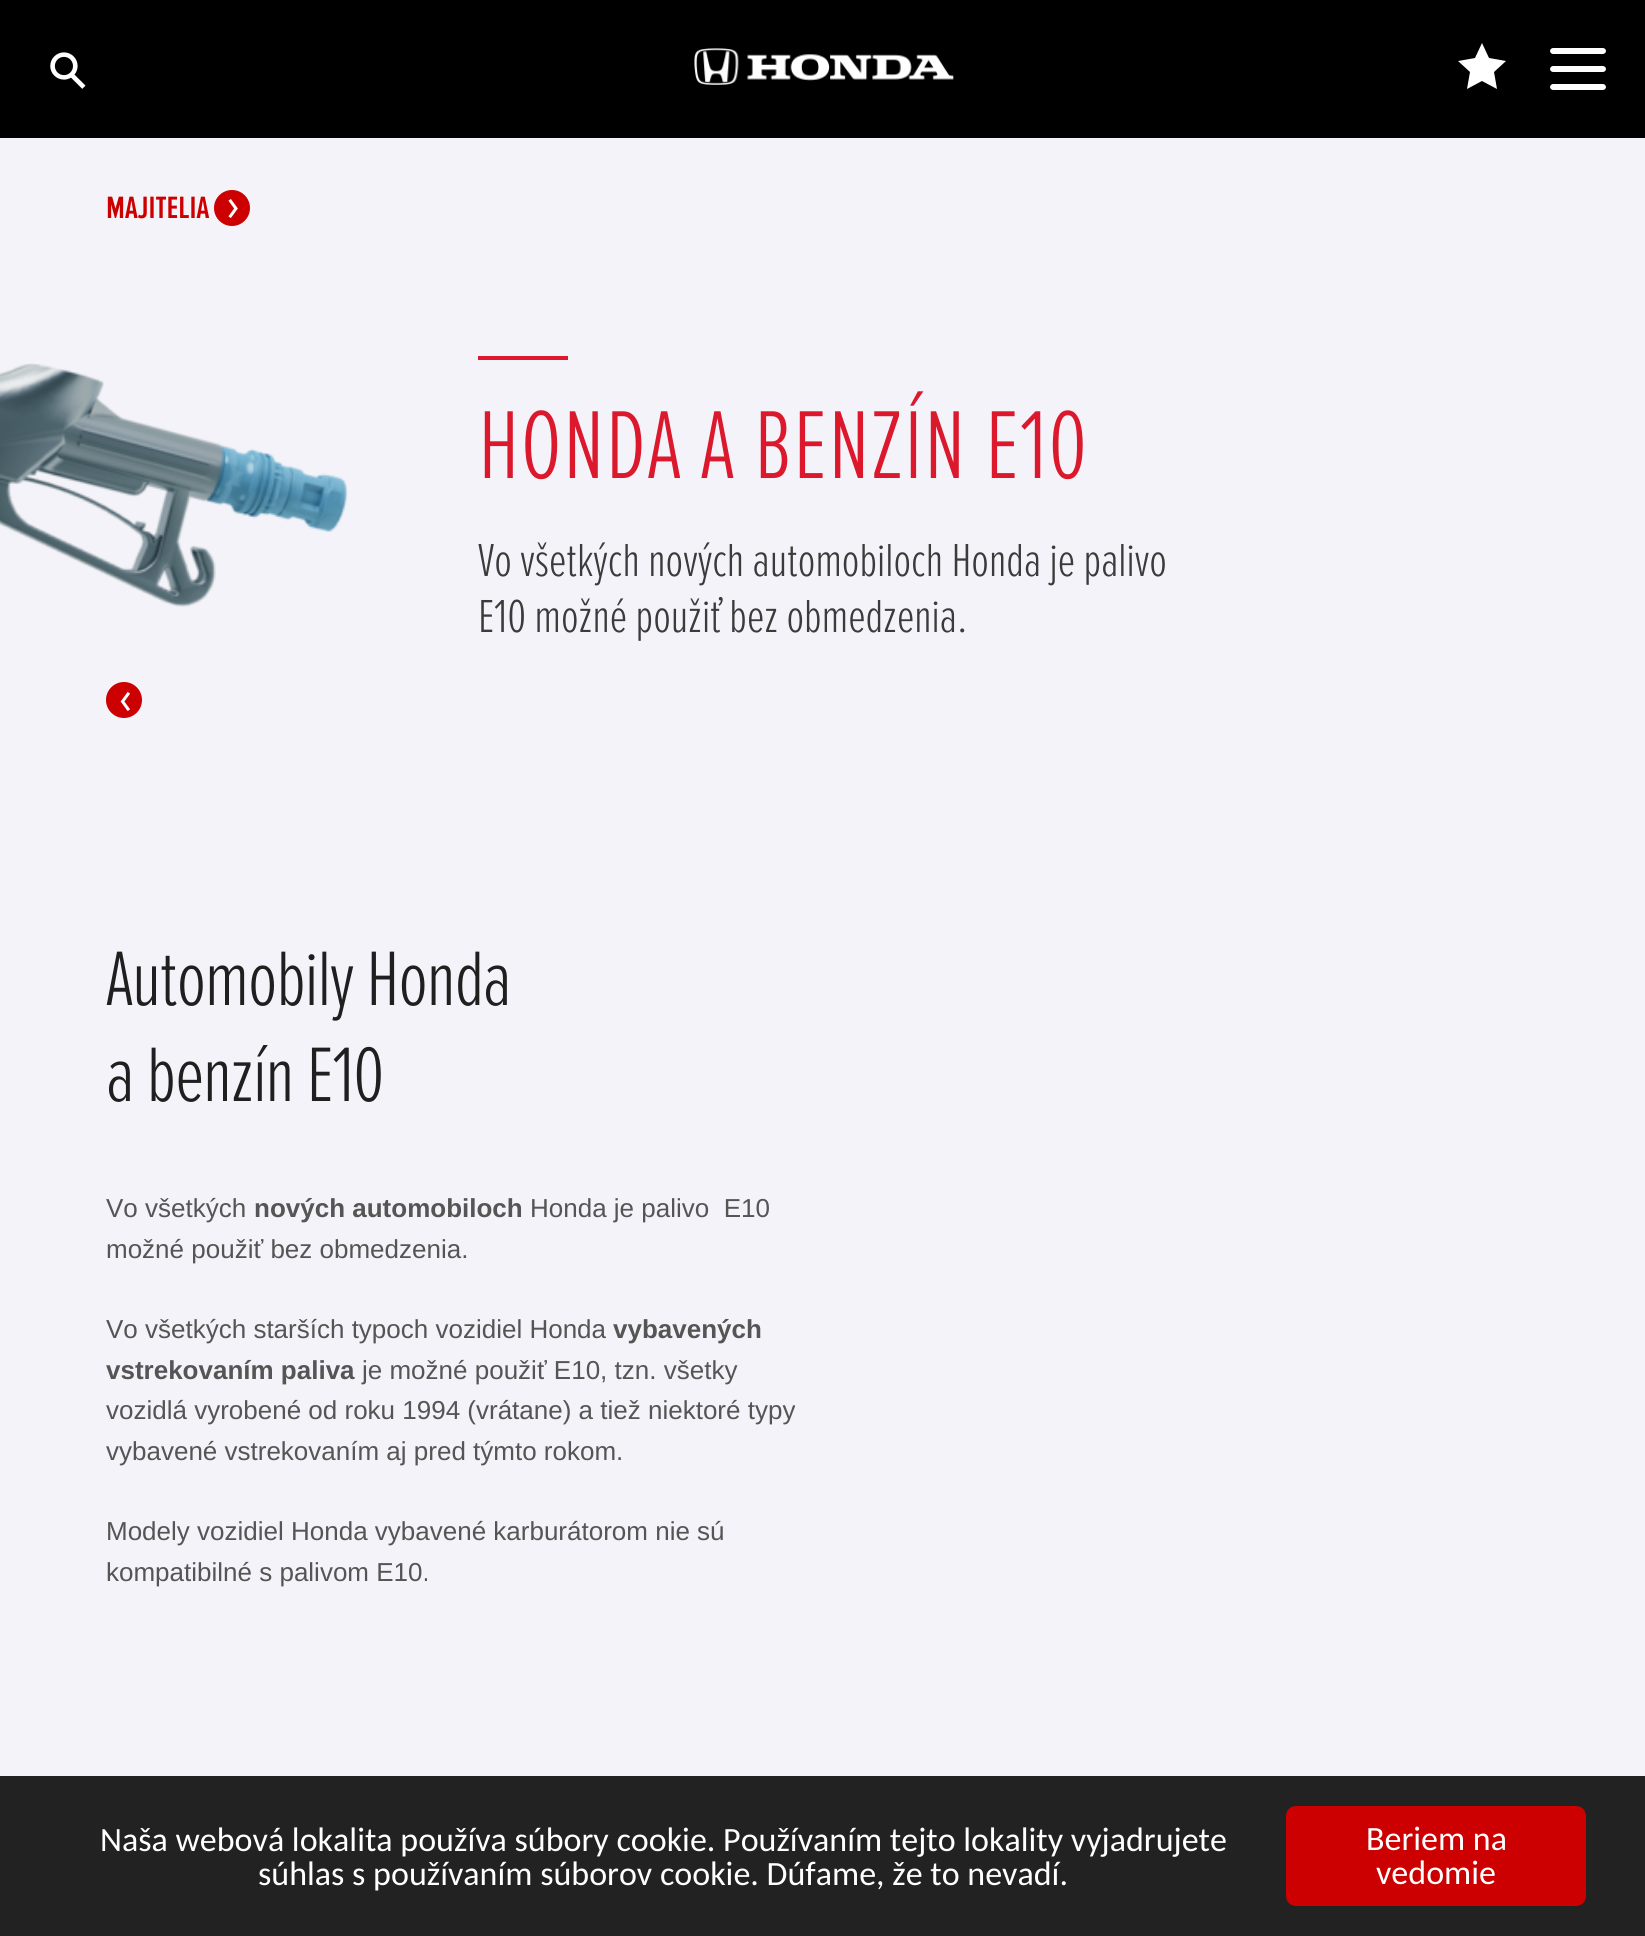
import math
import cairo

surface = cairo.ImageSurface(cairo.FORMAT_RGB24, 1645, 1936)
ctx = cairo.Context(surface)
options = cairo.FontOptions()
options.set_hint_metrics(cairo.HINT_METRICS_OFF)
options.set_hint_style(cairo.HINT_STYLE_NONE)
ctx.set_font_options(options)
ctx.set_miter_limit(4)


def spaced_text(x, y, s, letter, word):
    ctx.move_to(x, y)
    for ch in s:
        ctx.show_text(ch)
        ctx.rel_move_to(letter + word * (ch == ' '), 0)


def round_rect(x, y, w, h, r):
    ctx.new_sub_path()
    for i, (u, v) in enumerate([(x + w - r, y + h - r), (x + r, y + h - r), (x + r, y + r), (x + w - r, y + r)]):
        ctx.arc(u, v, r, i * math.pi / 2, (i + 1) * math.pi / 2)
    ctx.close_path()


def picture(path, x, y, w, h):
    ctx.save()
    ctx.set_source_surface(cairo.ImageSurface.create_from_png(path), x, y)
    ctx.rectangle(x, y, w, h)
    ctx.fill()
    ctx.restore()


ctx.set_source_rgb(0.957, 0.953, 0.973)
ctx.paint()
ctx.set_source_rgb(0, 0, 0)
ctx.rectangle(0, 0, 1645, 138)
ctx.fill()
picture("img1.png", 50, 52, 36, 37)
picture("img2.png", 694, 48, 260, 37)
ctx.set_source_rgb(1, 1, 1)
ctx.new_path()
ctx.move_to(1482, 43)
ctx.line_to(1489, 58)
ctx.line_to(1506, 61)
ctx.line_to(1494, 72)
ctx.line_to(1497, 89)
ctx.line_to(1482, 81)
ctx.line_to(1467, 89)
ctx.line_to(1470, 72)
ctx.line_to(1458, 61)
ctx.line_to(1475, 58)
ctx.close_path()
ctx.fill()
ctx.new_path()
ctx.move_to(1553, 48)
ctx.line_to(1578, 48)
ctx.line_to(1578, 54)
ctx.line_to(1553, 54)
ctx.curve_to(1551.5, 54, 1550, 52.5, 1550, 51)
ctx.curve_to(1550, 49.5, 1551.5, 48, 1553, 48)
ctx.close_path()
ctx.fill()
ctx.new_path()
ctx.move_to(1578, 48)
ctx.line_to(1603, 48)
ctx.curve_to(1604.5, 48, 1606, 49.5, 1606, 51)
ctx.curve_to(1606, 52.5, 1604.5, 54, 1603, 54)
ctx.line_to(1578, 54)
ctx.close_path()
ctx.fill()
ctx.new_path()
ctx.move_to(1553, 66)
ctx.line_to(1578, 66)
ctx.line_to(1578, 72)
ctx.line_to(1553, 72)
ctx.curve_to(1551.5, 72, 1550, 70.5, 1550, 69)
ctx.curve_to(1550, 67.5, 1551.5, 66, 1553, 66)
ctx.close_path()
ctx.fill()
ctx.new_path()
ctx.move_to(1578, 66)
ctx.line_to(1603, 66)
ctx.curve_to(1604.5, 66, 1606, 67.5, 1606, 69)
ctx.curve_to(1606, 70.5, 1604.5, 72, 1603, 72)
ctx.line_to(1578, 72)
ctx.close_path()
ctx.fill()
ctx.new_path()
ctx.move_to(1553, 84)
ctx.line_to(1578, 84)
ctx.line_to(1578, 90)
ctx.line_to(1553, 90)
ctx.curve_to(1551.5, 90, 1550, 88.5, 1550, 87)
ctx.curve_to(1550, 85.5, 1551.5, 84, 1553, 84)
ctx.close_path()
ctx.fill()
ctx.new_path()
ctx.move_to(1578, 84)
ctx.line_to(1603, 84)
ctx.curve_to(1604.5, 84, 1606, 85.5, 1606, 87)
ctx.curve_to(1606, 88.5, 1604.5, 90, 1603, 90)
ctx.line_to(1578, 90)
ctx.close_path()
ctx.fill()
ctx.select_font_face("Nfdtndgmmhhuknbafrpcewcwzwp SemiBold")
ctx.set_font_size(32)
ctx.set_source_rgb(0.8, 0, 0)
ctx.move_to(106, 218)
ctx.show_text("MAJITELIA")
ctx.new_path()
ctx.arc(232, 208, 18, 0, 2 * math.pi)
ctx.fill()
ctx.new_path()
ctx.move_to(230.5, 201)
ctx.line_to(236, 208.5)
ctx.line_to(230.5, 216)
ctx.set_source_rgb(1, 1, 1)
ctx.set_line_width(3)
ctx.set_line_cap(cairo.LINE_CAP_SQUARE)
ctx.stroke()
picture("img3.png", 0, 363, 348, 244)
ctx.set_source_rgb(0.863, 0.094, 0.176)
ctx.rectangle(478, 356, 90, 4)
ctx.fill()
ctx.select_font_face("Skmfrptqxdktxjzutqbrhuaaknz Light")
ctx.set_font_size(100)
spaced_text(478, 478, "HONDA A BENZÍN E10", 1, 0)
ctx.set_font_size(48)
ctx.set_source_rgb(0.231, 0.231, 0.231)
ctx.move_to(478, 576)
ctx.show_text("Vo všetkých nových automobiloch Honda je palivo")
ctx.move_to(478, 632)
ctx.show_text("E10 možné použiť bez obmedzenia.")
ctx.set_source_rgb(0.8, 0, 0)
ctx.new_path()
ctx.arc(124, 700, 18, 0, 2 * math.pi)
ctx.fill()
ctx.new_path()
ctx.move_to(128, 709)
ctx.line_to(122.5, 701.5)
ctx.line_to(128, 694)
ctx.set_source_rgb(1, 1, 1)
ctx.stroke()
ctx.set_font_size(80)
ctx.set_source_rgb(0.122, 0.122, 0.122)
spaced_text(106, 1005, "Automobily Honda", -1, 0)
spaced_text(106, 1101, "a benzín E10", -1, 0)
ctx.select_font_face("Liberation Sans")
ctx.set_font_size(26)
ctx.set_source_rgb(0.333, 0.333, 0.333)
ctx.move_to(106, 1217)
ctx.show_text("Vo všetkých")
ctx.select_font_face("Liberation Sans", cairo.FONT_SLANT_NORMAL, cairo.FONT_WEIGHT_BOLD)
ctx.move_to(254, 1217)
ctx.show_text("nových automobiloch")
ctx.select_font_face("Liberation Sans")
ctx.move_to(530, 1217)
ctx.show_text("Honda je palivo  E10")
ctx.move_to(106, 1258)
ctx.show_text("možné použiť bez obmedzenia.")
ctx.move_to(106, 1338)
ctx.show_text("Vo všetkých starších typoch vozidiel Honda")
ctx.select_font_face("Liberation Sans", cairo.FONT_SLANT_NORMAL, cairo.FONT_WEIGHT_BOLD)
ctx.move_to(613, 1338)
ctx.show_text("vybavených")
ctx.move_to(106, 1379)
ctx.show_text("vstrekovaním paliva")
ctx.select_font_face("Liberation Sans")
ctx.move_to(362, 1379)
ctx.show_text("je možné použiť E10, tzn. všetky")
ctx.move_to(106, 1419)
ctx.show_text("vozidlá vyrobené od roku 1994 (vrátane) a tiež niektoré typy")
ctx.move_to(106, 1460)
ctx.show_text("vybavené vstrekovaním aj pred týmto rokom.")
ctx.move_to(106, 1540)
ctx.show_text("Modely vozidiel Honda vybavené karburátorom nie sú")
ctx.move_to(106, 1581)
ctx.show_text("kompatibilné s palivom E10.")
ctx.set_source_rgb(0.133, 0.133, 0.133)
ctx.rectangle(0, 1776, 1645, 160)
ctx.fill()
ctx.select_font_face("Carlito")
ctx.set_font_size(34)
ctx.set_source_rgb(1, 1, 1)
ctx.move_to(100, 1851)
ctx.show_text("Naša webová lokalita používa súbory cookie. Používaním tejto lokality vyjadrujete")
ctx.move_to(258, 1885)
ctx.show_text("súhlas s používaním súborov cookie. Dúfame, že to nevadí.")
ctx.set_source_rgb(0.8, 0, 0)
round_rect(1286, 1806, 300, 100, 10)
ctx.fill()
ctx.set_source_rgb(1, 1, 1)
ctx.move_to(1366, 1850)
ctx.show_text("Beriem na")
ctx.move_to(1376, 1884)
ctx.show_text("vedomie")
surface.write_to_png("page.png")
